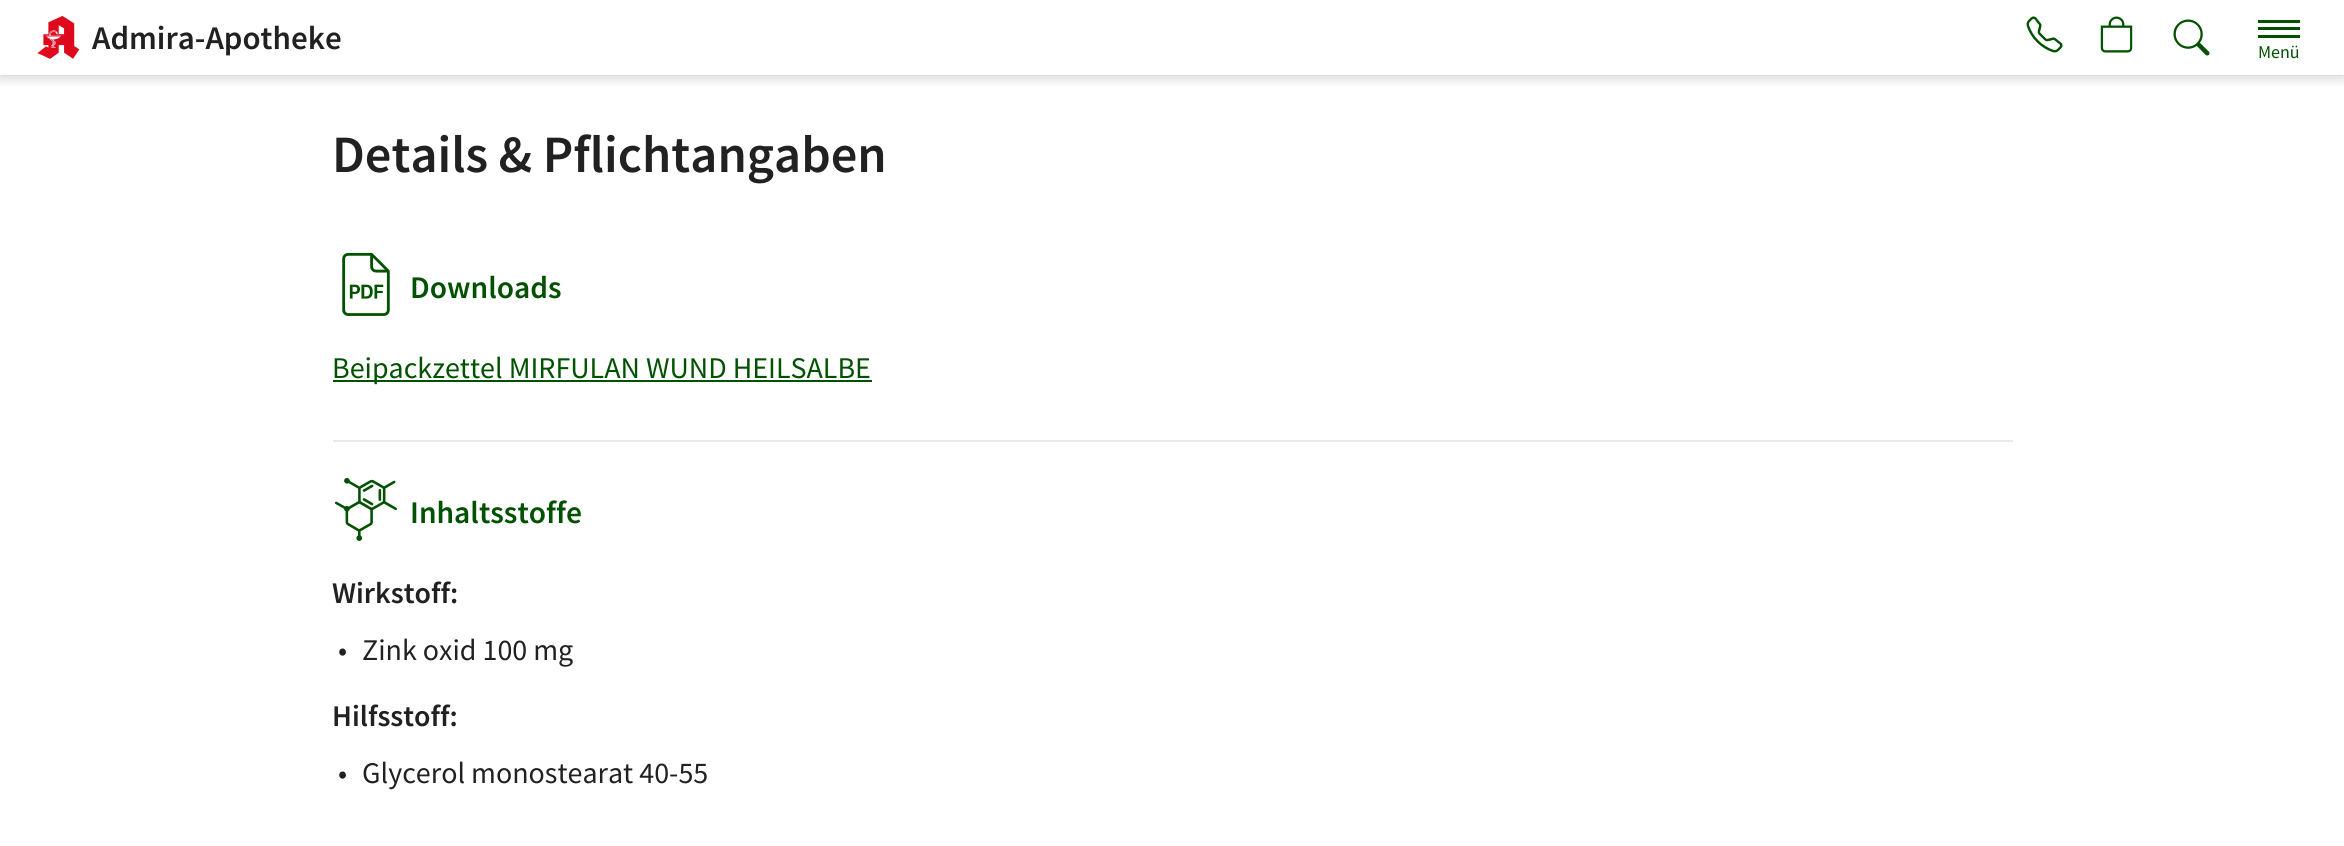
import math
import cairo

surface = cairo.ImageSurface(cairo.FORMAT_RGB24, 2344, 846)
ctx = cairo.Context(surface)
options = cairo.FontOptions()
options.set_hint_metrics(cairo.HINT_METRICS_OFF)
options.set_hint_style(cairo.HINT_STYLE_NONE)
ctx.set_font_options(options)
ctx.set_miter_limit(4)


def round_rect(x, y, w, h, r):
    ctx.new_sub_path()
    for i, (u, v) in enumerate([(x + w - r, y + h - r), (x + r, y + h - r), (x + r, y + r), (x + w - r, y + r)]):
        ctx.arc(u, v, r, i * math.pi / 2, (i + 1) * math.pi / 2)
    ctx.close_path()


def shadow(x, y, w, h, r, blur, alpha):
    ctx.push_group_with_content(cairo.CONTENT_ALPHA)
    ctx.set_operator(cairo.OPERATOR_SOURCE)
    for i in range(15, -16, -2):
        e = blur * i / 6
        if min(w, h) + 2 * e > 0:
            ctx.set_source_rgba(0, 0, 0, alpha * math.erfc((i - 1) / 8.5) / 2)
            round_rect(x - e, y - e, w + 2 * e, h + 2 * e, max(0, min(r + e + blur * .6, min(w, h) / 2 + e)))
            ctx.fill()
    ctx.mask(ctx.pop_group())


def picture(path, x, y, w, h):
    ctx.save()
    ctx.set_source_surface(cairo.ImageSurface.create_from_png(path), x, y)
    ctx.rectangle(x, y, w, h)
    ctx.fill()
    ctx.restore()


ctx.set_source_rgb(1, 1, 1)
ctx.paint()
ctx.save()
ctx.rectangle(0, 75, 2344, 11)
ctx.clip()
ctx.set_source_rgb(0, 0, 0)
shadow(0, 0, 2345, 75, 0, 7.5, 0.25)
ctx.restore()
picture("img1.png", 37, 16, 43, 43)
ctx.select_font_face("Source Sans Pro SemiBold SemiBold")
ctx.set_font_size(33)
ctx.set_source_rgb(0.129, 0.129, 0.129)
ctx.move_to(92, 49)
ctx.show_text("Admira-Apotheke")
picture("img2.png", 2026, 16, 37, 37)
picture("img3.png", 2100, 16, 33, 37)
picture("img4.png", 2173, 19, 37, 37)
ctx.set_source_rgb(0, 0.322, 0)
ctx.rectangle(2258, 27, 42, 3)
ctx.fill()
ctx.rectangle(2258, 20, 42, 3)
ctx.fill()
ctx.rectangle(2258, 35, 42, 3)
ctx.fill()
ctx.select_font_face("Source Sans Pro")
ctx.set_font_size(18)
ctx.move_to(2258, 58)
ctx.show_text("Menü")
ctx.select_font_face("Source Sans Pro SemiBold SemiBold")
ctx.set_font_size(52.5)
ctx.set_source_rgb(0.129, 0.129, 0.129)
ctx.move_to(332, 172)
ctx.show_text("Details & Pflichtangaben")
ctx.set_source_rgb(0.914, 0.914, 0.914)
ctx.rectangle(333, 440, 1680, 2)
ctx.fill()
picture("img5.png", 342, 252, 48, 64)
ctx.set_font_size(31.5)
ctx.set_source_rgb(0, 0.322, 0)
ctx.move_to(410, 298)
ctx.show_text("Downloads")
ctx.rectangle(333, 380, 539, 2)
ctx.fill()
ctx.select_font_face("Source Sans Pro")
ctx.set_font_size(30)
ctx.move_to(332, 378)
ctx.show_text("Beipackzettel MIRFULAN WUND HEILSALBE")
picture("img6.png", 335, 478, 62, 63)
ctx.select_font_face("Source Sans Pro SemiBold SemiBold")
ctx.set_font_size(31.5)
ctx.move_to(410, 523)
ctx.show_text("Inhaltsstoffe")
ctx.set_font_size(30)
ctx.set_source_rgb(0.129, 0.129, 0.129)
ctx.move_to(332, 603)
ctx.show_text("Wirkstoff:")
ctx.select_font_face("Source Sans Pro")
ctx.move_to(338, 660)
ctx.show_text("•")
ctx.move_to(362, 660)
ctx.show_text("Zink oxid 100 mg")
ctx.select_font_face("Source Sans Pro SemiBold SemiBold")
ctx.move_to(332, 726)
ctx.show_text("Hilfsstoff:")
ctx.select_font_face("Source Sans Pro")
ctx.move_to(338, 783)
ctx.show_text("•")
ctx.move_to(362, 783)
ctx.show_text("Glycerol monostearat 40-55")
surface.write_to_png("page.png")
